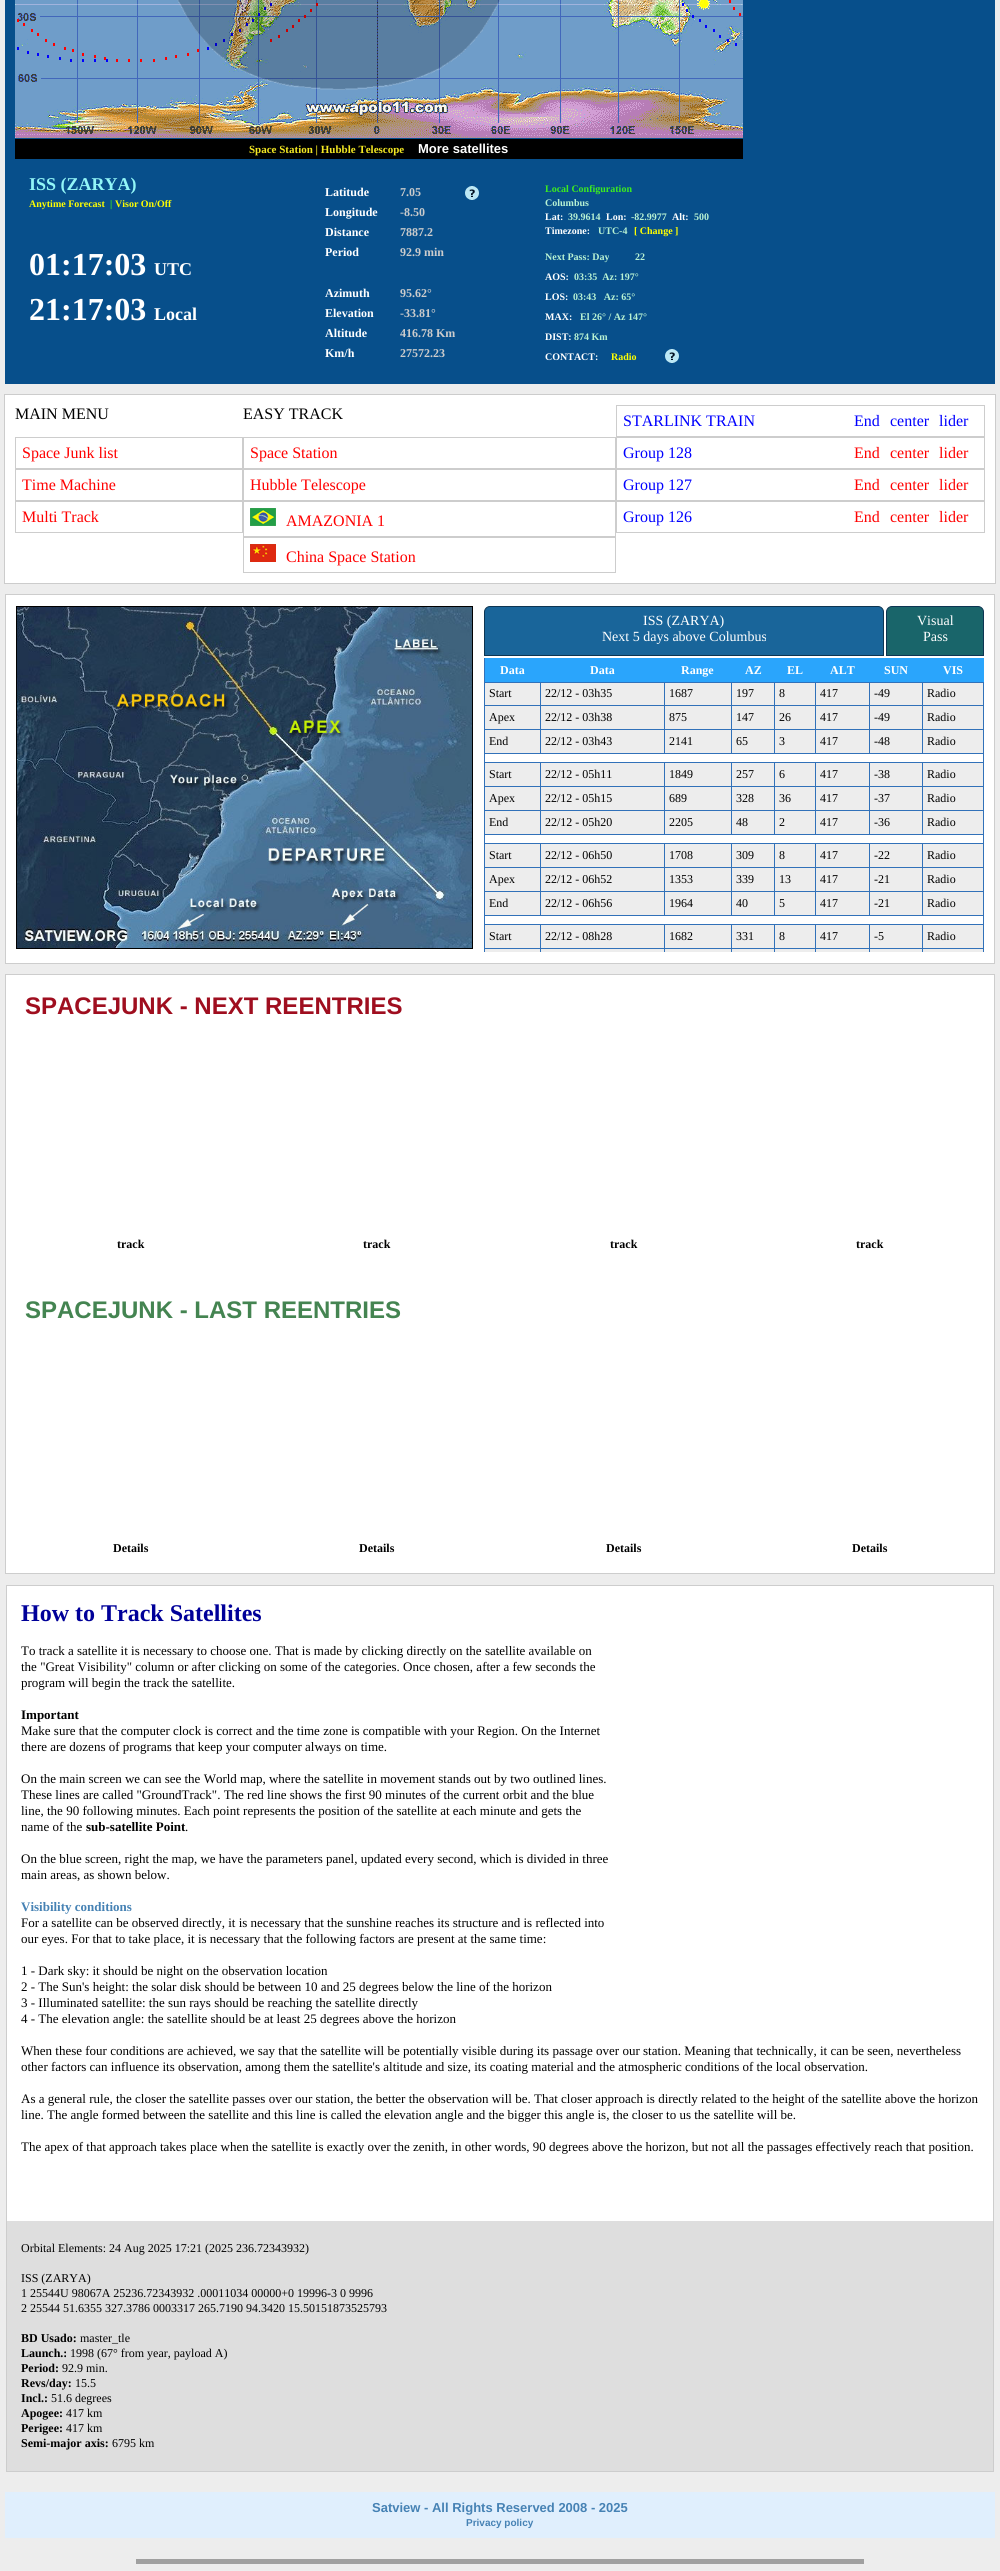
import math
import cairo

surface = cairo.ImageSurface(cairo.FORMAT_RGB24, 1000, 2571)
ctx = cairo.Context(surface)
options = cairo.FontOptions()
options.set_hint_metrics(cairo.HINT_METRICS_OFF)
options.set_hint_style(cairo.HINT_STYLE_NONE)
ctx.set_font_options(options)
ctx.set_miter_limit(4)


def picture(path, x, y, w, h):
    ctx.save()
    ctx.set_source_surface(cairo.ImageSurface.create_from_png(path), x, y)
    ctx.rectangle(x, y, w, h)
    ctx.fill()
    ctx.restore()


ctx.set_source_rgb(0.929, 0.929, 0.929)
ctx.paint()
ctx.set_source_rgb(0.031, 0.31, 0.545)
ctx.rectangle(5, 0, 990, 384)
ctx.fill()
picture("img1.png", 15, 0, 728, 138)
ctx.set_source_rgb(1, 0, 0)
ctx.rectangle(729, 0, 2, 3)
ctx.fill()
ctx.set_source_rgb(0, 0, 1)
ctx.rectangle(270, 3, 2, 3)
ctx.fill()
ctx.set_source_rgb(1, 0, 0)
ctx.rectangle(316, 3, 2, 3)
ctx.fill()
ctx.set_source_rgb(0, 0, 1)
ctx.rectangle(682, 3, 2, 3)
ctx.fill()
ctx.rectangle(264, 7, 2, 3)
ctx.fill()
ctx.set_source_rgb(1, 0, 0)
ctx.rectangle(733, 7, 2, 3)
ctx.fill()
ctx.rectangle(310, 9, 2, 3)
ctx.fill()
ctx.set_source_rgb(0, 0, 1)
ctx.rectangle(686, 9, 2, 3)
ctx.fill()
ctx.rectangle(258, 13, 2, 3)
ctx.fill()
ctx.set_source_rgb(1, 0, 0)
ctx.rectangle(739, 13, 2, 3)
ctx.fill()
ctx.rectangle(304, 15, 2, 3)
ctx.fill()
ctx.set_source_rgb(0, 0, 1)
ctx.rectangle(692, 15, 2, 3)
ctx.fill()
ctx.set_source_rgb(1, 0, 0)
ctx.rectangle(17, 19, 2, 3)
ctx.fill()
ctx.set_source_rgb(0, 0, 1)
ctx.rectangle(252, 19, 2, 3)
ctx.fill()
ctx.set_source_rgb(1, 0, 0)
ctx.rectangle(298, 19, 2, 3)
ctx.fill()
ctx.set_source_rgb(0, 0, 1)
ctx.rectangle(699, 19, 2, 3)
ctx.fill()
ctx.set_source_rgb(1, 0, 0)
ctx.rectangle(23, 23, 2, 3)
ctx.fill()
ctx.set_source_rgb(0, 0, 1)
ctx.rectangle(246, 23, 2, 3)
ctx.fill()
ctx.set_source_rgb(1, 0, 0)
ctx.rectangle(292, 25, 2, 3)
ctx.fill()
ctx.set_source_rgb(0, 0, 1)
ctx.rectangle(705, 25, 2, 3)
ctx.fill()
ctx.set_source_rgb(1, 0, 0)
ctx.rectangle(31, 29, 2, 3)
ctx.fill()
ctx.set_source_rgb(0, 0, 1)
ctx.rectangle(239, 29, 2, 3)
ctx.fill()
ctx.set_source_rgb(1, 0, 0)
ctx.rectangle(286, 29, 2, 3)
ctx.fill()
ctx.set_source_rgb(0, 0, 1)
ctx.rectangle(713, 29, 2, 3)
ctx.fill()
ctx.set_source_rgb(1, 0, 0)
ctx.rectangle(37, 33, 2, 3)
ctx.fill()
ctx.set_source_rgb(0, 0, 1)
ctx.rectangle(231, 33, 2, 3)
ctx.fill()
ctx.set_source_rgb(1, 0, 0)
ctx.rectangle(278, 35, 2, 3)
ctx.fill()
ctx.set_source_rgb(0, 0, 1)
ctx.rectangle(719, 35, 2, 3)
ctx.fill()
ctx.set_source_rgb(1, 0, 0)
ctx.rectangle(45, 39, 2, 3)
ctx.fill()
ctx.set_source_rgb(0, 0, 1)
ctx.rectangle(223, 39, 2, 3)
ctx.fill()
ctx.set_source_rgb(1, 0, 0)
ctx.rectangle(270, 39, 2, 3)
ctx.fill()
ctx.set_source_rgb(0, 0, 1)
ctx.rectangle(727, 39, 2, 3)
ctx.fill()
ctx.set_source_rgb(1, 0, 0)
ctx.rectangle(53, 43, 2, 3)
ctx.fill()
ctx.set_source_rgb(0, 0, 1)
ctx.rectangle(215, 43, 2, 3)
ctx.fill()
ctx.rectangle(735, 43, 2, 3)
ctx.fill()
ctx.rectangle(17, 47, 2, 3)
ctx.fill()
ctx.set_source_rgb(1, 0, 0)
ctx.rectangle(64, 47, 2, 3)
ctx.fill()
ctx.set_source_rgb(0, 0, 1)
ctx.rectangle(207, 47, 2, 3)
ctx.fill()
ctx.set_source_rgb(1, 0, 0)
ctx.rectangle(72, 49, 2, 3)
ctx.fill()
ctx.rectangle(197, 49, 2, 3)
ctx.fill()
ctx.set_source_rgb(0, 0, 1)
ctx.rectangle(27, 51, 2, 3)
ctx.fill()
ctx.rectangle(37, 53, 2, 3)
ctx.fill()
ctx.set_source_rgb(1, 0, 0)
ctx.rectangle(82, 53, 2, 3)
ctx.fill()
ctx.rectangle(187, 53, 2, 3)
ctx.fill()
ctx.set_source_rgb(0, 0, 1)
ctx.rectangle(47, 55, 2, 3)
ctx.fill()
ctx.set_source_rgb(1, 0, 0)
ctx.rectangle(94, 55, 2, 3)
ctx.fill()
ctx.rectangle(175, 55, 2, 3)
ctx.fill()
ctx.set_source_rgb(0, 0, 1)
ctx.rectangle(59, 57, 2, 3)
ctx.fill()
ctx.set_source_rgb(1, 0, 0)
ctx.rectangle(104, 57, 2, 3)
ctx.fill()
ctx.rectangle(165, 57, 2, 3)
ctx.fill()
ctx.set_source_rgb(0, 0, 1)
ctx.rectangle(70, 59, 2, 3)
ctx.fill()
ctx.rectangle(82, 59, 2, 3)
ctx.fill()
ctx.rectangle(94, 59, 2, 3)
ctx.fill()
ctx.rectangle(106, 59, 2, 3)
ctx.fill()
ctx.set_source_rgb(1, 0, 0)
ctx.rectangle(116, 59, 2, 3)
ctx.fill()
ctx.rectangle(128, 59, 2, 3)
ctx.fill()
ctx.rectangle(140, 59, 2, 3)
ctx.fill()
ctx.rectangle(153, 59, 2, 3)
ctx.fill()
picture("img2.png", 177, 0, 323, 90)
picture("img3.png", 697, 0, 13, 10)
ctx.set_source_rgb(0, 0, 0)
ctx.rectangle(15, 139, 728, 20)
ctx.fill()
ctx.select_font_face("Liberation Serif", cairo.FONT_SLANT_NORMAL, cairo.FONT_WEIGHT_BOLD)
ctx.set_font_size(11)
ctx.set_source_rgb(0.957, 0.91, 0.137)
ctx.move_to(249, 153)
ctx.show_text("Space Station | Hubble Telescope")
ctx.select_font_face("Liberation Sans", cairo.FONT_SLANT_NORMAL, cairo.FONT_WEIGHT_BOLD)
ctx.set_font_size(13)
ctx.set_source_rgb(1, 1, 1)
ctx.move_to(418, 153)
ctx.show_text("More satellites")
ctx.select_font_face("Liberation Serif", cairo.FONT_SLANT_NORMAL, cairo.FONT_WEIGHT_BOLD)
ctx.set_font_size(18)
ctx.set_source_rgb(0.573, 0.961, 0.965)
ctx.move_to(29, 190)
ctx.show_text("ISS (ZARYA)")
ctx.set_font_size(12)
ctx.set_source_rgb(1, 1, 1)
ctx.move_to(325, 196)
ctx.show_text("Latitude")
ctx.move_to(325, 216)
ctx.show_text("Longitude")
ctx.move_to(325, 236)
ctx.show_text("Distance")
ctx.move_to(325, 256)
ctx.show_text("Period")
ctx.set_source_rgb(0.8, 0.8, 0.8)
ctx.move_to(400, 196)
ctx.show_text("7.05")
ctx.move_to(400, 216)
ctx.show_text("-8.50")
ctx.move_to(400, 236)
ctx.show_text("7887.2")
ctx.move_to(400, 256)
ctx.show_text("92.9 min")
ctx.set_font_size(10)
ctx.set_source_rgb(0.235, 0.922, 0.122)
ctx.move_to(545, 192)
ctx.show_text("Local Configuration")
ctx.set_source_rgb(0.722, 0.949, 0.827)
ctx.move_to(545, 206)
ctx.show_text("Columbus")
ctx.set_source_rgb(1, 1, 1)
ctx.move_to(545, 220)
ctx.show_text("Lat:")
ctx.set_source_rgb(0.722, 0.949, 0.827)
ctx.move_to(568, 220)
ctx.show_text("39.9614")
ctx.set_source_rgb(1, 1, 1)
ctx.move_to(606, 220)
ctx.show_text("Lon:")
ctx.set_source_rgb(0.722, 0.949, 0.827)
ctx.move_to(631, 220)
ctx.show_text("-82.9977")
ctx.set_source_rgb(1, 1, 1)
ctx.move_to(672, 220)
ctx.show_text("Alt:")
ctx.set_source_rgb(0.722, 0.949, 0.827)
ctx.move_to(694, 220)
ctx.show_text("500")
ctx.set_source_rgb(1, 1, 1)
ctx.move_to(545, 234)
ctx.show_text("Timezone:")
ctx.set_source_rgb(0.722, 0.949, 0.827)
ctx.move_to(598, 234)
ctx.show_text("UTC-4")
ctx.set_source_rgb(1, 1, 0)
ctx.move_to(634, 234)
ctx.show_text("[ Change ]")
picture("img4.png", 465, 186, 14, 14)
ctx.set_font_size(32)
ctx.set_source_rgb(1, 1, 1)
ctx.move_to(29, 275)
ctx.show_text("01:17:03")
ctx.set_font_size(18)
ctx.move_to(154, 275)
ctx.show_text("UTC")
ctx.set_font_size(32)
ctx.move_to(29, 320)
ctx.show_text("21:17:03")
ctx.set_font_size(18)
ctx.move_to(154, 320)
ctx.show_text("Local")
picture("img4.png", 665, 349, 14, 14)
ctx.set_font_size(10)
ctx.set_source_rgb(1, 1, 0)
ctx.move_to(611, 360)
ctx.show_text("Radio")
ctx.set_source_rgb(1, 1, 1)
ctx.move_to(545, 360)
ctx.show_text("CONTACT:")
ctx.set_source_rgb(0.722, 0.949, 0.827)
ctx.move_to(545, 260)
ctx.show_text("Next Pass: Day")
ctx.move_to(635, 260)
ctx.show_text("22")
ctx.set_source_rgb(1, 1, 1)
ctx.move_to(545, 280)
ctx.show_text("AOS:")
ctx.set_source_rgb(0.722, 0.949, 0.827)
ctx.move_to(574, 280)
ctx.show_text("03:35  Az: 197°")
ctx.set_source_rgb(1, 1, 1)
ctx.move_to(545, 300)
ctx.show_text("LOS:")
ctx.set_source_rgb(0.722, 0.949, 0.827)
ctx.move_to(573, 300)
ctx.show_text("03:43   Az: 65°")
ctx.set_source_rgb(1, 1, 1)
ctx.move_to(545, 320)
ctx.show_text("MAX:")
ctx.set_source_rgb(0.722, 0.949, 0.827)
ctx.move_to(580, 320)
ctx.show_text("El 26° / Az 147°")
ctx.set_source_rgb(1, 1, 1)
ctx.move_to(545, 340)
ctx.show_text("DIST:")
ctx.set_source_rgb(0.722, 0.949, 0.827)
ctx.move_to(574, 340)
ctx.show_text("874 Km")
ctx.set_font_size(12)
ctx.set_source_rgb(1, 1, 1)
ctx.move_to(325, 297)
ctx.show_text("Azimuth")
ctx.move_to(325, 317)
ctx.show_text("Elevation")
ctx.move_to(325, 337)
ctx.show_text("Altitude")
ctx.move_to(325, 357)
ctx.show_text("Km/h")
ctx.set_source_rgb(0.8, 0.8, 0.8)
ctx.move_to(400, 297)
ctx.show_text("95.62°")
ctx.move_to(400, 317)
ctx.show_text("-33.81°")
ctx.move_to(400, 337)
ctx.show_text("416.78 Km")
ctx.move_to(400, 357)
ctx.show_text("27572.23")
ctx.set_font_size(10)
ctx.set_source_rgb(1, 1, 0)
ctx.move_to(29, 207)
ctx.show_text("Anytime Forecast")
ctx.set_source_rgb(0.235, 0.922, 0.122)
ctx.move_to(110, 207)
ctx.show_text("|")
ctx.set_source_rgb(1, 1, 0)
ctx.move_to(115, 207)
ctx.show_text("Visor On/Off")
ctx.set_source_rgb(1, 1, 1)
ctx.rectangle(4.5, 394.5, 991, 189)
ctx.fill_preserve()
ctx.set_source_rgb(0.8, 0.8, 0.8)
ctx.set_line_width(1)
ctx.stroke()
ctx.select_font_face("Liberation Serif")
ctx.set_font_size(16)
ctx.set_source_rgb(0, 0, 0)
ctx.move_to(15, 419)
ctx.show_text("MAIN MENU")
ctx.move_to(243, 419)
ctx.show_text("EASY TRACK")
ctx.rectangle(616.5, 405.5, 368, 31)
ctx.set_source_rgb(0.804, 0.804, 0.804)
ctx.stroke()
ctx.set_source_rgb(0, 0, 1)
ctx.move_to(623, 426)
ctx.show_text("STARLINK TRAIN")
ctx.move_to(854, 426)
ctx.show_text("End")
ctx.move_to(890, 426)
ctx.show_text("center")
ctx.move_to(939, 426)
ctx.show_text("lider")
ctx.rectangle(15.5, 437.5, 227, 31)
ctx.set_source_rgb(0.804, 0.804, 0.804)
ctx.stroke()
ctx.set_source_rgb(1, 0, 0)
ctx.move_to(22, 458)
ctx.show_text("Space Junk list")
ctx.rectangle(15.5, 469.5, 227, 31)
ctx.set_source_rgb(0.804, 0.804, 0.804)
ctx.stroke()
ctx.set_source_rgb(1, 0, 0)
ctx.move_to(22, 490)
ctx.show_text("Time Machine")
ctx.rectangle(15.5, 501.5, 227, 31)
ctx.set_source_rgb(0.804, 0.804, 0.804)
ctx.stroke()
ctx.set_source_rgb(1, 0, 0)
ctx.move_to(22, 522)
ctx.show_text("Multi Track")
ctx.rectangle(243.5, 437.5, 372, 31)
ctx.set_source_rgb(0.804, 0.804, 0.804)
ctx.stroke()
ctx.set_source_rgb(1, 0, 0)
ctx.move_to(250, 458)
ctx.show_text("Space Station")
ctx.rectangle(243.5, 469.5, 372, 31)
ctx.set_source_rgb(0.804, 0.804, 0.804)
ctx.stroke()
ctx.set_source_rgb(1, 0, 0)
ctx.move_to(250, 490)
ctx.show_text("Hubble Telescope")
ctx.rectangle(243.5, 501.5, 372, 35)
ctx.set_source_rgb(0.804, 0.804, 0.804)
ctx.stroke()
picture("img5.png", 250, 508, 26, 18)
ctx.set_source_rgb(1, 0, 0)
ctx.move_to(286, 526)
ctx.show_text("AMAZONIA 1")
ctx.rectangle(243.5, 537.5, 372, 35)
ctx.set_source_rgb(0.804, 0.804, 0.804)
ctx.stroke()
picture("img6.png", 250, 544, 26, 18)
ctx.set_source_rgb(1, 0, 0)
ctx.move_to(286, 562)
ctx.show_text("China Space Station")
ctx.rectangle(616.5, 437.5, 368, 31)
ctx.set_source_rgb(0.804, 0.804, 0.804)
ctx.stroke()
ctx.set_source_rgb(0, 0, 1)
ctx.move_to(623, 458)
ctx.show_text("Group 128")
ctx.set_source_rgb(1, 0, 0)
ctx.move_to(854, 458)
ctx.show_text("End")
ctx.move_to(890, 458)
ctx.show_text("center")
ctx.move_to(939, 458)
ctx.show_text("lider")
ctx.rectangle(616.5, 469.5, 368, 31)
ctx.set_source_rgb(0.804, 0.804, 0.804)
ctx.stroke()
ctx.set_source_rgb(0, 0, 1)
ctx.move_to(623, 490)
ctx.show_text("Group 127")
ctx.set_source_rgb(1, 0, 0)
ctx.move_to(854, 490)
ctx.show_text("End")
ctx.move_to(890, 490)
ctx.show_text("center")
ctx.move_to(939, 490)
ctx.show_text("lider")
ctx.rectangle(616.5, 501.5, 368, 31)
ctx.set_source_rgb(0.804, 0.804, 0.804)
ctx.stroke()
ctx.set_source_rgb(0, 0, 1)
ctx.move_to(623, 522)
ctx.show_text("Group 126")
ctx.set_source_rgb(1, 0, 0)
ctx.move_to(854, 522)
ctx.show_text("End")
ctx.move_to(890, 522)
ctx.show_text("center")
ctx.move_to(939, 522)
ctx.show_text("lider")
ctx.set_source_rgb(1, 1, 1)
ctx.rectangle(5.5, 594.5, 989, 369)
ctx.fill_preserve()
ctx.set_source_rgb(0.804, 0.804, 0.804)
ctx.stroke()
ctx.rectangle(16.5, 606.5, 456, 342)
ctx.set_source_rgb(0, 0, 0)
ctx.stroke()
picture("img7.png", 17, 607, 455, 341)
ctx.set_source_rgb(0.098, 0.396, 0.604)
ctx.new_path()
ctx.move_to(490, 606.5)
ctx.line_to(878, 606.5)
ctx.curve_to(881, 606.5, 883.5, 609, 883.5, 612)
ctx.line_to(883.5, 655.5)
ctx.line_to(484.5, 655.5)
ctx.line_to(484.5, 612)
ctx.curve_to(484.5, 609, 487, 606.5, 490, 606.5)
ctx.close_path()
ctx.fill_preserve()
ctx.set_source_rgb(0.051, 0.208, 0.322)
ctx.stroke()
ctx.set_font_size(14)
ctx.set_source_rgb(1, 1, 1)
ctx.move_to(643, 625)
ctx.show_text("ISS (ZARYA)")
ctx.move_to(602, 641)
ctx.show_text("Next 5 days above Columbus")
ctx.set_source_rgb(0.098, 0.396, 0.416)
ctx.new_path()
ctx.move_to(892, 606.5)
ctx.line_to(978, 606.5)
ctx.curve_to(981, 606.5, 983.5, 609, 983.5, 612)
ctx.line_to(983.5, 655.5)
ctx.line_to(886.5, 655.5)
ctx.line_to(886.5, 612)
ctx.curve_to(886.5, 609, 889, 606.5, 892, 606.5)
ctx.close_path()
ctx.fill_preserve()
ctx.set_source_rgb(0.051, 0.208, 0.322)
ctx.stroke()
ctx.set_source_rgb(1, 1, 1)
ctx.move_to(917, 625)
ctx.show_text("Visual")
ctx.move_to(923, 641)
ctx.show_text("Pass")
ctx.set_source_rgb(0.192, 0.443, 0.725)
ctx.rectangle(922, 705, 62, 1)
ctx.fill()
ctx.rectangle(922, 729, 62, 1)
ctx.fill()
ctx.rectangle(484, 753, 500, 1)
ctx.fill()
ctx.rectangle(922, 729, 1, 25)
ctx.fill()
ctx.rectangle(869, 729, 54, 1)
ctx.fill()
ctx.rectangle(922, 705, 1, 25)
ctx.fill()
ctx.rectangle(869, 705, 54, 1)
ctx.fill()
ctx.rectangle(869, 729, 1, 25)
ctx.fill()
ctx.rectangle(815, 729, 55, 1)
ctx.fill()
ctx.rectangle(869, 705, 1, 25)
ctx.fill()
ctx.rectangle(815, 705, 55, 1)
ctx.fill()
ctx.rectangle(815, 729, 1, 25)
ctx.fill()
ctx.rectangle(774, 729, 42, 1)
ctx.fill()
ctx.rectangle(815, 705, 1, 25)
ctx.fill()
ctx.rectangle(774, 705, 42, 1)
ctx.fill()
ctx.rectangle(774, 729, 1, 25)
ctx.fill()
ctx.rectangle(731, 729, 44, 1)
ctx.fill()
ctx.rectangle(774, 705, 1, 25)
ctx.fill()
ctx.rectangle(731, 705, 44, 1)
ctx.fill()
ctx.rectangle(731, 729, 1, 25)
ctx.fill()
ctx.rectangle(664, 729, 68, 1)
ctx.fill()
ctx.rectangle(731, 705, 1, 25)
ctx.fill()
ctx.rectangle(664, 705, 68, 1)
ctx.fill()
ctx.rectangle(664, 729, 1, 25)
ctx.fill()
ctx.rectangle(540, 729, 125, 1)
ctx.fill()
ctx.rectangle(664, 705, 1, 25)
ctx.fill()
ctx.rectangle(540, 705, 125, 1)
ctx.fill()
ctx.rectangle(540, 729, 1, 25)
ctx.fill()
ctx.rectangle(484, 729, 57, 1)
ctx.fill()
ctx.rectangle(540, 705, 1, 25)
ctx.fill()
ctx.rectangle(484, 705, 57, 1)
ctx.fill()
ctx.rectangle(540, 681, 1, 25)
ctx.fill()
ctx.rectangle(664, 681, 1, 25)
ctx.fill()
ctx.rectangle(731, 681, 1, 25)
ctx.fill()
ctx.rectangle(774, 681, 1, 25)
ctx.fill()
ctx.rectangle(815, 681, 1, 25)
ctx.fill()
ctx.rectangle(869, 681, 1, 25)
ctx.fill()
ctx.rectangle(922, 681, 1, 25)
ctx.fill()
ctx.rectangle(922, 762, 62, 1)
ctx.fill()
ctx.rectangle(922, 786, 62, 1)
ctx.fill()
ctx.rectangle(922, 810, 62, 1)
ctx.fill()
ctx.rectangle(484, 834, 500, 1)
ctx.fill()
ctx.rectangle(922, 810, 1, 25)
ctx.fill()
ctx.rectangle(869, 810, 54, 1)
ctx.fill()
ctx.rectangle(922, 786, 1, 25)
ctx.fill()
ctx.rectangle(869, 786, 54, 1)
ctx.fill()
ctx.rectangle(922, 762, 1, 25)
ctx.fill()
ctx.rectangle(869, 762, 54, 1)
ctx.fill()
ctx.rectangle(869, 810, 1, 25)
ctx.fill()
ctx.rectangle(815, 810, 55, 1)
ctx.fill()
ctx.rectangle(869, 786, 1, 25)
ctx.fill()
ctx.rectangle(815, 786, 55, 1)
ctx.fill()
ctx.rectangle(869, 762, 1, 25)
ctx.fill()
ctx.rectangle(815, 762, 55, 1)
ctx.fill()
ctx.rectangle(815, 810, 1, 25)
ctx.fill()
ctx.rectangle(774, 810, 42, 1)
ctx.fill()
ctx.rectangle(815, 786, 1, 25)
ctx.fill()
ctx.rectangle(774, 786, 42, 1)
ctx.fill()
ctx.rectangle(815, 762, 1, 25)
ctx.fill()
ctx.rectangle(774, 762, 42, 1)
ctx.fill()
ctx.rectangle(774, 810, 1, 25)
ctx.fill()
ctx.rectangle(731, 810, 44, 1)
ctx.fill()
ctx.rectangle(774, 786, 1, 25)
ctx.fill()
ctx.rectangle(731, 786, 44, 1)
ctx.fill()
ctx.rectangle(774, 762, 1, 25)
ctx.fill()
ctx.rectangle(731, 762, 44, 1)
ctx.fill()
ctx.rectangle(731, 810, 1, 25)
ctx.fill()
ctx.rectangle(664, 810, 68, 1)
ctx.fill()
ctx.rectangle(731, 786, 1, 25)
ctx.fill()
ctx.rectangle(664, 786, 68, 1)
ctx.fill()
ctx.rectangle(731, 762, 1, 25)
ctx.fill()
ctx.rectangle(664, 762, 68, 1)
ctx.fill()
ctx.rectangle(664, 810, 1, 25)
ctx.fill()
ctx.rectangle(540, 810, 125, 1)
ctx.fill()
ctx.rectangle(664, 786, 1, 25)
ctx.fill()
ctx.rectangle(540, 786, 125, 1)
ctx.fill()
ctx.rectangle(664, 762, 1, 25)
ctx.fill()
ctx.rectangle(540, 762, 125, 1)
ctx.fill()
ctx.rectangle(540, 810, 1, 25)
ctx.fill()
ctx.rectangle(484, 810, 57, 1)
ctx.fill()
ctx.rectangle(540, 786, 1, 25)
ctx.fill()
ctx.rectangle(484, 786, 57, 1)
ctx.fill()
ctx.rectangle(540, 762, 1, 25)
ctx.fill()
ctx.rectangle(484, 762, 57, 1)
ctx.fill()
ctx.rectangle(922, 843, 62, 1)
ctx.fill()
ctx.rectangle(922, 867, 62, 1)
ctx.fill()
ctx.rectangle(922, 891, 62, 1)
ctx.fill()
ctx.rectangle(484, 915, 500, 1)
ctx.fill()
ctx.rectangle(922, 891, 1, 25)
ctx.fill()
ctx.rectangle(869, 891, 54, 1)
ctx.fill()
ctx.rectangle(922, 867, 1, 25)
ctx.fill()
ctx.rectangle(869, 867, 54, 1)
ctx.fill()
ctx.rectangle(922, 843, 1, 25)
ctx.fill()
ctx.rectangle(869, 843, 54, 1)
ctx.fill()
ctx.rectangle(869, 891, 1, 25)
ctx.fill()
ctx.rectangle(815, 891, 55, 1)
ctx.fill()
ctx.rectangle(869, 867, 1, 25)
ctx.fill()
ctx.rectangle(815, 867, 55, 1)
ctx.fill()
ctx.rectangle(869, 843, 1, 25)
ctx.fill()
ctx.rectangle(815, 843, 55, 1)
ctx.fill()
ctx.rectangle(815, 891, 1, 25)
ctx.fill()
ctx.rectangle(774, 891, 42, 1)
ctx.fill()
ctx.rectangle(815, 867, 1, 25)
ctx.fill()
ctx.rectangle(774, 867, 42, 1)
ctx.fill()
ctx.rectangle(815, 843, 1, 25)
ctx.fill()
ctx.rectangle(774, 843, 42, 1)
ctx.fill()
ctx.rectangle(774, 891, 1, 25)
ctx.fill()
ctx.rectangle(731, 891, 44, 1)
ctx.fill()
ctx.rectangle(774, 867, 1, 25)
ctx.fill()
ctx.rectangle(731, 867, 44, 1)
ctx.fill()
ctx.rectangle(774, 843, 1, 25)
ctx.fill()
ctx.rectangle(731, 843, 44, 1)
ctx.fill()
ctx.rectangle(731, 891, 1, 25)
ctx.fill()
ctx.rectangle(664, 891, 68, 1)
ctx.fill()
ctx.rectangle(731, 867, 1, 25)
ctx.fill()
ctx.rectangle(664, 867, 68, 1)
ctx.fill()
ctx.rectangle(731, 843, 1, 25)
ctx.fill()
ctx.rectangle(664, 843, 68, 1)
ctx.fill()
ctx.rectangle(664, 891, 1, 25)
ctx.fill()
ctx.rectangle(540, 891, 125, 1)
ctx.fill()
ctx.rectangle(664, 867, 1, 25)
ctx.fill()
ctx.rectangle(540, 867, 125, 1)
ctx.fill()
ctx.rectangle(664, 843, 1, 25)
ctx.fill()
ctx.rectangle(540, 843, 125, 1)
ctx.fill()
ctx.rectangle(540, 891, 1, 25)
ctx.fill()
ctx.rectangle(484, 891, 57, 1)
ctx.fill()
ctx.rectangle(540, 867, 1, 25)
ctx.fill()
ctx.rectangle(484, 867, 57, 1)
ctx.fill()
ctx.rectangle(540, 843, 1, 25)
ctx.fill()
ctx.rectangle(484, 843, 57, 1)
ctx.fill()
ctx.rectangle(922, 924, 62, 1)
ctx.fill()
ctx.rectangle(922, 948, 62, 1)
ctx.fill()
ctx.set_source_rgb(0.929, 0.929, 0.929)
ctx.rectangle(485, 949, 499, 3)
ctx.fill()
ctx.set_source_rgb(0.192, 0.443, 0.725)
ctx.rectangle(922, 948, 1, 4)
ctx.fill()
ctx.rectangle(869, 948, 54, 1)
ctx.fill()
ctx.rectangle(922, 924, 1, 25)
ctx.fill()
ctx.rectangle(869, 924, 54, 1)
ctx.fill()
ctx.rectangle(869, 948, 1, 4)
ctx.fill()
ctx.rectangle(815, 948, 55, 1)
ctx.fill()
ctx.rectangle(869, 924, 1, 25)
ctx.fill()
ctx.rectangle(815, 924, 55, 1)
ctx.fill()
ctx.rectangle(815, 948, 1, 4)
ctx.fill()
ctx.rectangle(774, 948, 42, 1)
ctx.fill()
ctx.rectangle(815, 924, 1, 25)
ctx.fill()
ctx.rectangle(774, 924, 42, 1)
ctx.fill()
ctx.rectangle(774, 948, 1, 4)
ctx.fill()
ctx.rectangle(731, 948, 44, 1)
ctx.fill()
ctx.rectangle(774, 924, 1, 25)
ctx.fill()
ctx.rectangle(731, 924, 44, 1)
ctx.fill()
ctx.rectangle(731, 948, 1, 4)
ctx.fill()
ctx.rectangle(664, 948, 68, 1)
ctx.fill()
ctx.rectangle(731, 924, 1, 25)
ctx.fill()
ctx.rectangle(664, 924, 68, 1)
ctx.fill()
ctx.rectangle(664, 948, 1, 4)
ctx.fill()
ctx.rectangle(540, 948, 125, 1)
ctx.fill()
ctx.rectangle(664, 924, 1, 25)
ctx.fill()
ctx.rectangle(540, 924, 125, 1)
ctx.fill()
ctx.rectangle(540, 948, 1, 4)
ctx.fill()
ctx.rectangle(484, 948, 57, 1)
ctx.fill()
ctx.rectangle(540, 924, 1, 25)
ctx.fill()
ctx.rectangle(484, 924, 57, 1)
ctx.fill()
ctx.rectangle(484, 948, 1, 4)
ctx.fill()
ctx.rectangle(484, 924, 1, 25)
ctx.fill()
ctx.rectangle(484, 915, 1, 10)
ctx.fill()
ctx.rectangle(484, 891, 1, 25)
ctx.fill()
ctx.rectangle(484, 867, 1, 25)
ctx.fill()
ctx.rectangle(484, 843, 1, 25)
ctx.fill()
ctx.rectangle(484, 834, 1, 10)
ctx.fill()
ctx.rectangle(484, 810, 1, 25)
ctx.fill()
ctx.rectangle(484, 786, 1, 25)
ctx.fill()
ctx.rectangle(484, 762, 1, 25)
ctx.fill()
ctx.rectangle(484, 753, 1, 10)
ctx.fill()
ctx.rectangle(484, 729, 1, 25)
ctx.fill()
ctx.rectangle(484, 681, 1, 49)
ctx.fill()
ctx.rectangle(983, 948, 1, 4)
ctx.fill()
ctx.rectangle(983, 924, 1, 25)
ctx.fill()
ctx.rectangle(983, 915, 1, 10)
ctx.fill()
ctx.rectangle(983, 891, 1, 25)
ctx.fill()
ctx.rectangle(983, 867, 1, 25)
ctx.fill()
ctx.rectangle(983, 843, 1, 25)
ctx.fill()
ctx.rectangle(983, 834, 1, 10)
ctx.fill()
ctx.rectangle(983, 810, 1, 25)
ctx.fill()
ctx.rectangle(983, 786, 1, 25)
ctx.fill()
ctx.rectangle(983, 762, 1, 25)
ctx.fill()
ctx.rectangle(983, 753, 1, 10)
ctx.fill()
ctx.rectangle(983, 729, 1, 25)
ctx.fill()
ctx.rectangle(983, 681, 1, 49)
ctx.fill()
ctx.rectangle(484, 682, 500, 1)
ctx.fill()
ctx.rectangle(484, 658, 1, 25)
ctx.fill()
ctx.set_source_rgb(0.165, 0.647, 0.988)
ctx.rectangle(485, 658, 499, 24)
ctx.fill()
ctx.select_font_face("Liberation Serif", cairo.FONT_SLANT_NORMAL, cairo.FONT_WEIGHT_BOLD)
ctx.set_font_size(12)
ctx.set_source_rgb(1, 1, 1)
ctx.move_to(500, 674)
ctx.show_text("Data")
ctx.move_to(590, 674)
ctx.show_text("Data")
ctx.move_to(681, 674)
ctx.show_text("Range")
ctx.move_to(745, 674)
ctx.show_text("AZ")
ctx.move_to(787, 674)
ctx.show_text("EL")
ctx.move_to(830, 674)
ctx.show_text("ALT")
ctx.move_to(884, 674)
ctx.show_text("SUN")
ctx.move_to(943, 674)
ctx.show_text("VIS")
ctx.set_source_rgb(0.929, 0.929, 0.929)
ctx.rectangle(485, 683, 55, 22)
ctx.fill()
ctx.select_font_face("Liberation Serif")
ctx.set_source_rgb(0, 0, 0)
ctx.move_to(489, 697)
ctx.show_text("Start")
ctx.set_source_rgb(0.929, 0.929, 0.929)
ctx.rectangle(541, 683, 123, 22)
ctx.fill()
ctx.set_source_rgb(0, 0, 0)
ctx.move_to(545, 697)
ctx.show_text("22/12 - 03h35")
ctx.set_source_rgb(0.929, 0.929, 0.929)
ctx.rectangle(665, 683, 66, 22)
ctx.fill()
ctx.set_source_rgb(0, 0, 0)
ctx.move_to(669, 697)
ctx.show_text("1687")
ctx.set_source_rgb(0.929, 0.929, 0.929)
ctx.rectangle(732, 683, 42, 22)
ctx.fill()
ctx.set_source_rgb(0, 0, 0)
ctx.move_to(736, 697)
ctx.show_text("197")
ctx.set_source_rgb(0.929, 0.929, 0.929)
ctx.rectangle(775, 683, 40, 22)
ctx.fill()
ctx.set_source_rgb(0, 0, 0)
ctx.move_to(779, 697)
ctx.show_text("8")
ctx.set_source_rgb(0.929, 0.929, 0.929)
ctx.rectangle(816, 683, 53, 22)
ctx.fill()
ctx.set_source_rgb(0, 0, 0)
ctx.move_to(820, 697)
ctx.show_text("417")
ctx.set_source_rgb(0.929, 0.929, 0.929)
ctx.rectangle(870, 683, 52, 22)
ctx.fill()
ctx.set_source_rgb(0, 0, 0)
ctx.move_to(874, 697)
ctx.show_text("-49")
ctx.set_source_rgb(0.929, 0.929, 0.929)
ctx.rectangle(923, 683, 60, 22)
ctx.fill()
ctx.set_source_rgb(0, 0, 0)
ctx.move_to(927, 697)
ctx.show_text("Radio")
ctx.set_source_rgb(0.929, 0.929, 0.929)
ctx.rectangle(485, 706, 55, 23)
ctx.fill()
ctx.set_source_rgb(0, 0, 0)
ctx.move_to(489, 721)
ctx.show_text("Apex")
ctx.set_source_rgb(0.929, 0.929, 0.929)
ctx.rectangle(541, 706, 123, 23)
ctx.fill()
ctx.set_source_rgb(0, 0, 0)
ctx.move_to(545, 721)
ctx.show_text("22/12 - 03h38")
ctx.set_source_rgb(0.929, 0.929, 0.929)
ctx.rectangle(665, 706, 66, 23)
ctx.fill()
ctx.set_source_rgb(0, 0, 0)
ctx.move_to(669, 721)
ctx.show_text("875")
ctx.set_source_rgb(0.929, 0.929, 0.929)
ctx.rectangle(732, 706, 42, 23)
ctx.fill()
ctx.set_source_rgb(0, 0, 0)
ctx.move_to(736, 721)
ctx.show_text("147")
ctx.set_source_rgb(0.929, 0.929, 0.929)
ctx.rectangle(775, 706, 40, 23)
ctx.fill()
ctx.set_source_rgb(0, 0, 0)
ctx.move_to(779, 721)
ctx.show_text("26")
ctx.set_source_rgb(0.929, 0.929, 0.929)
ctx.rectangle(816, 706, 53, 23)
ctx.fill()
ctx.set_source_rgb(0, 0, 0)
ctx.move_to(820, 721)
ctx.show_text("417")
ctx.set_source_rgb(0.929, 0.929, 0.929)
ctx.rectangle(870, 706, 52, 23)
ctx.fill()
ctx.set_source_rgb(0, 0, 0)
ctx.move_to(874, 721)
ctx.show_text("-49")
ctx.set_source_rgb(0.929, 0.929, 0.929)
ctx.rectangle(923, 706, 60, 23)
ctx.fill()
ctx.set_source_rgb(0, 0, 0)
ctx.move_to(927, 721)
ctx.show_text("Radio")
ctx.set_source_rgb(0.929, 0.929, 0.929)
ctx.rectangle(485, 730, 55, 23)
ctx.fill()
ctx.set_source_rgb(0, 0, 0)
ctx.move_to(489, 745)
ctx.show_text("End")
ctx.set_source_rgb(0.929, 0.929, 0.929)
ctx.rectangle(541, 730, 123, 23)
ctx.fill()
ctx.set_source_rgb(0, 0, 0)
ctx.move_to(545, 745)
ctx.show_text("22/12 - 03h43")
ctx.set_source_rgb(0.929, 0.929, 0.929)
ctx.rectangle(665, 730, 66, 23)
ctx.fill()
ctx.set_source_rgb(0, 0, 0)
ctx.move_to(669, 745)
ctx.show_text("2141")
ctx.set_source_rgb(0.929, 0.929, 0.929)
ctx.rectangle(732, 730, 42, 23)
ctx.fill()
ctx.set_source_rgb(0, 0, 0)
ctx.move_to(736, 745)
ctx.show_text("65")
ctx.set_source_rgb(0.929, 0.929, 0.929)
ctx.rectangle(775, 730, 40, 23)
ctx.fill()
ctx.set_source_rgb(0, 0, 0)
ctx.move_to(779, 745)
ctx.show_text("3")
ctx.set_source_rgb(0.929, 0.929, 0.929)
ctx.rectangle(816, 730, 53, 23)
ctx.fill()
ctx.set_source_rgb(0, 0, 0)
ctx.move_to(820, 745)
ctx.show_text("417")
ctx.set_source_rgb(0.929, 0.929, 0.929)
ctx.rectangle(870, 730, 52, 23)
ctx.fill()
ctx.set_source_rgb(0, 0, 0)
ctx.move_to(874, 745)
ctx.show_text("-48")
ctx.set_source_rgb(0.929, 0.929, 0.929)
ctx.rectangle(923, 730, 60, 23)
ctx.fill()
ctx.set_source_rgb(0, 0, 0)
ctx.move_to(927, 745)
ctx.show_text("Radio")
ctx.set_source_rgb(0.929, 0.929, 0.929)
ctx.rectangle(485, 763, 55, 23)
ctx.fill()
ctx.set_source_rgb(0, 0, 0)
ctx.move_to(489, 778)
ctx.show_text("Start")
ctx.set_source_rgb(0.929, 0.929, 0.929)
ctx.rectangle(541, 763, 123, 23)
ctx.fill()
ctx.set_source_rgb(0, 0, 0)
ctx.move_to(545, 778)
ctx.show_text("22/12 - 05h11")
ctx.set_source_rgb(0.929, 0.929, 0.929)
ctx.rectangle(665, 763, 66, 23)
ctx.fill()
ctx.set_source_rgb(0, 0, 0)
ctx.move_to(669, 778)
ctx.show_text("1849")
ctx.set_source_rgb(0.929, 0.929, 0.929)
ctx.rectangle(732, 763, 42, 23)
ctx.fill()
ctx.set_source_rgb(0, 0, 0)
ctx.move_to(736, 778)
ctx.show_text("257")
ctx.set_source_rgb(0.929, 0.929, 0.929)
ctx.rectangle(775, 763, 40, 23)
ctx.fill()
ctx.set_source_rgb(0, 0, 0)
ctx.move_to(779, 778)
ctx.show_text("6")
ctx.set_source_rgb(0.929, 0.929, 0.929)
ctx.rectangle(816, 763, 53, 23)
ctx.fill()
ctx.set_source_rgb(0, 0, 0)
ctx.move_to(820, 778)
ctx.show_text("417")
ctx.set_source_rgb(0.929, 0.929, 0.929)
ctx.rectangle(870, 763, 52, 23)
ctx.fill()
ctx.set_source_rgb(0, 0, 0)
ctx.move_to(874, 778)
ctx.show_text("-38")
ctx.set_source_rgb(0.929, 0.929, 0.929)
ctx.rectangle(923, 763, 60, 23)
ctx.fill()
ctx.set_source_rgb(0, 0, 0)
ctx.move_to(927, 778)
ctx.show_text("Radio")
ctx.set_source_rgb(0.929, 0.929, 0.929)
ctx.rectangle(485, 787, 55, 23)
ctx.fill()
ctx.set_source_rgb(0, 0, 0)
ctx.move_to(489, 802)
ctx.show_text("Apex")
ctx.set_source_rgb(0.929, 0.929, 0.929)
ctx.rectangle(541, 787, 123, 23)
ctx.fill()
ctx.set_source_rgb(0, 0, 0)
ctx.move_to(545, 802)
ctx.show_text("22/12 - 05h15")
ctx.set_source_rgb(0.929, 0.929, 0.929)
ctx.rectangle(665, 787, 66, 23)
ctx.fill()
ctx.set_source_rgb(0, 0, 0)
ctx.move_to(669, 802)
ctx.show_text("689")
ctx.set_source_rgb(0.929, 0.929, 0.929)
ctx.rectangle(732, 787, 42, 23)
ctx.fill()
ctx.set_source_rgb(0, 0, 0)
ctx.move_to(736, 802)
ctx.show_text("328")
ctx.set_source_rgb(0.929, 0.929, 0.929)
ctx.rectangle(775, 787, 40, 23)
ctx.fill()
ctx.set_source_rgb(0, 0, 0)
ctx.move_to(779, 802)
ctx.show_text("36")
ctx.set_source_rgb(0.929, 0.929, 0.929)
ctx.rectangle(816, 787, 53, 23)
ctx.fill()
ctx.set_source_rgb(0, 0, 0)
ctx.move_to(820, 802)
ctx.show_text("417")
ctx.set_source_rgb(0.929, 0.929, 0.929)
ctx.rectangle(870, 787, 52, 23)
ctx.fill()
ctx.set_source_rgb(0, 0, 0)
ctx.move_to(874, 802)
ctx.show_text("-37")
ctx.set_source_rgb(0.929, 0.929, 0.929)
ctx.rectangle(923, 787, 60, 23)
ctx.fill()
ctx.set_source_rgb(0, 0, 0)
ctx.move_to(927, 802)
ctx.show_text("Radio")
ctx.set_source_rgb(0.929, 0.929, 0.929)
ctx.rectangle(485, 811, 55, 23)
ctx.fill()
ctx.set_source_rgb(0, 0, 0)
ctx.move_to(489, 826)
ctx.show_text("End")
ctx.set_source_rgb(0.929, 0.929, 0.929)
ctx.rectangle(541, 811, 123, 23)
ctx.fill()
ctx.set_source_rgb(0, 0, 0)
ctx.move_to(545, 826)
ctx.show_text("22/12 - 05h20")
ctx.set_source_rgb(0.929, 0.929, 0.929)
ctx.rectangle(665, 811, 66, 23)
ctx.fill()
ctx.set_source_rgb(0, 0, 0)
ctx.move_to(669, 826)
ctx.show_text("2205")
ctx.set_source_rgb(0.929, 0.929, 0.929)
ctx.rectangle(732, 811, 42, 23)
ctx.fill()
ctx.set_source_rgb(0, 0, 0)
ctx.move_to(736, 826)
ctx.show_text("48")
ctx.set_source_rgb(0.929, 0.929, 0.929)
ctx.rectangle(775, 811, 40, 23)
ctx.fill()
ctx.set_source_rgb(0, 0, 0)
ctx.move_to(779, 826)
ctx.show_text("2")
ctx.set_source_rgb(0.929, 0.929, 0.929)
ctx.rectangle(816, 811, 53, 23)
ctx.fill()
ctx.set_source_rgb(0, 0, 0)
ctx.move_to(820, 826)
ctx.show_text("417")
ctx.set_source_rgb(0.929, 0.929, 0.929)
ctx.rectangle(870, 811, 52, 23)
ctx.fill()
ctx.set_source_rgb(0, 0, 0)
ctx.move_to(874, 826)
ctx.show_text("-36")
ctx.set_source_rgb(0.929, 0.929, 0.929)
ctx.rectangle(923, 811, 60, 23)
ctx.fill()
ctx.set_source_rgb(0, 0, 0)
ctx.move_to(927, 826)
ctx.show_text("Radio")
ctx.set_source_rgb(0.929, 0.929, 0.929)
ctx.rectangle(485, 844, 55, 23)
ctx.fill()
ctx.set_source_rgb(0, 0, 0)
ctx.move_to(489, 859)
ctx.show_text("Start")
ctx.set_source_rgb(0.929, 0.929, 0.929)
ctx.rectangle(541, 844, 123, 23)
ctx.fill()
ctx.set_source_rgb(0, 0, 0)
ctx.move_to(545, 859)
ctx.show_text("22/12 - 06h50")
ctx.set_source_rgb(0.929, 0.929, 0.929)
ctx.rectangle(665, 844, 66, 23)
ctx.fill()
ctx.set_source_rgb(0, 0, 0)
ctx.move_to(669, 859)
ctx.show_text("1708")
ctx.set_source_rgb(0.929, 0.929, 0.929)
ctx.rectangle(732, 844, 42, 23)
ctx.fill()
ctx.set_source_rgb(0, 0, 0)
ctx.move_to(736, 859)
ctx.show_text("309")
ctx.set_source_rgb(0.929, 0.929, 0.929)
ctx.rectangle(775, 844, 40, 23)
ctx.fill()
ctx.set_source_rgb(0, 0, 0)
ctx.move_to(779, 859)
ctx.show_text("8")
ctx.set_source_rgb(0.929, 0.929, 0.929)
ctx.rectangle(816, 844, 53, 23)
ctx.fill()
ctx.set_source_rgb(0, 0, 0)
ctx.move_to(820, 859)
ctx.show_text("417")
ctx.set_source_rgb(0.929, 0.929, 0.929)
ctx.rectangle(870, 844, 52, 23)
ctx.fill()
ctx.set_source_rgb(0, 0, 0)
ctx.move_to(874, 859)
ctx.show_text("-22")
ctx.set_source_rgb(0.929, 0.929, 0.929)
ctx.rectangle(923, 844, 60, 23)
ctx.fill()
ctx.set_source_rgb(0, 0, 0)
ctx.move_to(927, 859)
ctx.show_text("Radio")
ctx.set_source_rgb(0.929, 0.929, 0.929)
ctx.rectangle(485, 868, 55, 23)
ctx.fill()
ctx.set_source_rgb(0, 0, 0)
ctx.move_to(489, 883)
ctx.show_text("Apex")
ctx.set_source_rgb(0.929, 0.929, 0.929)
ctx.rectangle(541, 868, 123, 23)
ctx.fill()
ctx.set_source_rgb(0, 0, 0)
ctx.move_to(545, 883)
ctx.show_text("22/12 - 06h52")
ctx.set_source_rgb(0.929, 0.929, 0.929)
ctx.rectangle(665, 868, 66, 23)
ctx.fill()
ctx.set_source_rgb(0, 0, 0)
ctx.move_to(669, 883)
ctx.show_text("1353")
ctx.set_source_rgb(0.929, 0.929, 0.929)
ctx.rectangle(732, 868, 42, 23)
ctx.fill()
ctx.set_source_rgb(0, 0, 0)
ctx.move_to(736, 883)
ctx.show_text("339")
ctx.set_source_rgb(0.929, 0.929, 0.929)
ctx.rectangle(775, 868, 40, 23)
ctx.fill()
ctx.set_source_rgb(0, 0, 0)
ctx.move_to(779, 883)
ctx.show_text("13")
ctx.set_source_rgb(0.929, 0.929, 0.929)
ctx.rectangle(816, 868, 53, 23)
ctx.fill()
ctx.set_source_rgb(0, 0, 0)
ctx.move_to(820, 883)
ctx.show_text("417")
ctx.set_source_rgb(0.929, 0.929, 0.929)
ctx.rectangle(870, 868, 52, 23)
ctx.fill()
ctx.set_source_rgb(0, 0, 0)
ctx.move_to(874, 883)
ctx.show_text("-21")
ctx.set_source_rgb(0.929, 0.929, 0.929)
ctx.rectangle(923, 868, 60, 23)
ctx.fill()
ctx.set_source_rgb(0, 0, 0)
ctx.move_to(927, 883)
ctx.show_text("Radio")
ctx.set_source_rgb(0.929, 0.929, 0.929)
ctx.rectangle(485, 892, 55, 23)
ctx.fill()
ctx.set_source_rgb(0, 0, 0)
ctx.move_to(489, 907)
ctx.show_text("End")
ctx.set_source_rgb(0.929, 0.929, 0.929)
ctx.rectangle(541, 892, 123, 23)
ctx.fill()
ctx.set_source_rgb(0, 0, 0)
ctx.move_to(545, 907)
ctx.show_text("22/12 - 06h56")
ctx.set_source_rgb(0.929, 0.929, 0.929)
ctx.rectangle(665, 892, 66, 23)
ctx.fill()
ctx.set_source_rgb(0, 0, 0)
ctx.move_to(669, 907)
ctx.show_text("1964")
ctx.set_source_rgb(0.929, 0.929, 0.929)
ctx.rectangle(732, 892, 42, 23)
ctx.fill()
ctx.set_source_rgb(0, 0, 0)
ctx.move_to(736, 907)
ctx.show_text("40")
ctx.set_source_rgb(0.929, 0.929, 0.929)
ctx.rectangle(775, 892, 40, 23)
ctx.fill()
ctx.set_source_rgb(0, 0, 0)
ctx.move_to(779, 907)
ctx.show_text("5")
ctx.set_source_rgb(0.929, 0.929, 0.929)
ctx.rectangle(816, 892, 53, 23)
ctx.fill()
ctx.set_source_rgb(0, 0, 0)
ctx.move_to(820, 907)
ctx.show_text("417")
ctx.set_source_rgb(0.929, 0.929, 0.929)
ctx.rectangle(870, 892, 52, 23)
ctx.fill()
ctx.set_source_rgb(0, 0, 0)
ctx.move_to(874, 907)
ctx.show_text("-21")
ctx.set_source_rgb(0.929, 0.929, 0.929)
ctx.rectangle(923, 892, 60, 23)
ctx.fill()
ctx.set_source_rgb(0, 0, 0)
ctx.move_to(927, 907)
ctx.show_text("Radio")
ctx.set_source_rgb(0.929, 0.929, 0.929)
ctx.rectangle(485, 925, 55, 23)
ctx.fill()
ctx.set_source_rgb(0, 0, 0)
ctx.move_to(489, 940)
ctx.show_text("Start")
ctx.set_source_rgb(0.929, 0.929, 0.929)
ctx.rectangle(541, 925, 123, 23)
ctx.fill()
ctx.set_source_rgb(0, 0, 0)
ctx.move_to(545, 940)
ctx.show_text("22/12 - 08h28")
ctx.set_source_rgb(0.929, 0.929, 0.929)
ctx.rectangle(665, 925, 66, 23)
ctx.fill()
ctx.set_source_rgb(0, 0, 0)
ctx.move_to(669, 940)
ctx.show_text("1682")
ctx.set_source_rgb(0.929, 0.929, 0.929)
ctx.rectangle(732, 925, 42, 23)
ctx.fill()
ctx.set_source_rgb(0, 0, 0)
ctx.move_to(736, 940)
ctx.show_text("331")
ctx.set_source_rgb(0.929, 0.929, 0.929)
ctx.rectangle(775, 925, 40, 23)
ctx.fill()
ctx.set_source_rgb(0, 0, 0)
ctx.move_to(779, 940)
ctx.show_text("8")
ctx.set_source_rgb(0.929, 0.929, 0.929)
ctx.rectangle(816, 925, 53, 23)
ctx.fill()
ctx.set_source_rgb(0, 0, 0)
ctx.move_to(820, 940)
ctx.show_text("417")
ctx.set_source_rgb(0.929, 0.929, 0.929)
ctx.rectangle(870, 925, 52, 23)
ctx.fill()
ctx.set_source_rgb(0, 0, 0)
ctx.move_to(874, 940)
ctx.show_text("-5")
ctx.set_source_rgb(0.929, 0.929, 0.929)
ctx.rectangle(923, 925, 60, 23)
ctx.fill()
ctx.set_source_rgb(0, 0, 0)
ctx.move_to(927, 940)
ctx.show_text("Radio")
ctx.rectangle(5.5, 974.5, 989, 599)
ctx.set_source_rgb(0.804, 0.804, 0.804)
ctx.stroke()
ctx.set_source_rgb(1, 1, 1)
ctx.rectangle(6, 975, 988, 598)
ctx.fill()
ctx.select_font_face("Liberation Sans", cairo.FONT_SLANT_NORMAL, cairo.FONT_WEIGHT_BOLD)
ctx.set_font_size(24)
ctx.set_source_rgb(0.624, 0.055, 0.122)
ctx.move_to(25, 1014)
ctx.show_text("SPACEJUNK - NEXT REENTRIES")
ctx.select_font_face("Liberation Serif", cairo.FONT_SLANT_NORMAL, cairo.FONT_WEIGHT_BOLD)
ctx.set_font_size(12)
ctx.set_source_rgb(0, 0, 0)
ctx.move_to(117, 1248)
ctx.show_text("track")
ctx.move_to(363, 1248)
ctx.show_text("track")
ctx.move_to(610, 1248)
ctx.show_text("track")
ctx.move_to(856, 1248)
ctx.show_text("track")
ctx.select_font_face("Liberation Sans", cairo.FONT_SLANT_NORMAL, cairo.FONT_WEIGHT_BOLD)
ctx.set_font_size(24)
ctx.set_source_rgb(0.267, 0.518, 0.318)
ctx.move_to(25, 1318)
ctx.show_text("SPACEJUNK - LAST REENTRIES")
ctx.select_font_face("Liberation Serif", cairo.FONT_SLANT_NORMAL, cairo.FONT_WEIGHT_BOLD)
ctx.set_font_size(12)
ctx.set_source_rgb(0, 0, 0)
ctx.move_to(113, 1552)
ctx.show_text("Details")
ctx.move_to(359, 1552)
ctx.show_text("Details")
ctx.move_to(606, 1552)
ctx.show_text("Details")
ctx.move_to(852, 1552)
ctx.show_text("Details")
ctx.set_source_rgb(1, 1, 1)
ctx.rectangle(7, 1586, 986, 635)
ctx.fill()
ctx.rectangle(6.5, 1585.5, 987, 886)
ctx.set_source_rgb(0.804, 0.804, 0.804)
ctx.stroke()
ctx.set_font_size(24)
ctx.set_source_rgb(0, 0, 0.6)
ctx.move_to(21, 1621)
ctx.show_text("How to Track Satellites")
ctx.select_font_face("Liberation Serif")
ctx.set_font_size(13)
ctx.set_source_rgb(0, 0, 0)
ctx.move_to(21, 1655)
ctx.show_text("To track a satellite it is necessary to choose one. That is made by clicking directly on the satellite available on")
ctx.move_to(21, 1671)
ctx.show_text("the \"Great Visibility\" column or after clicking on some of the categories. Once chosen, after a few seconds the")
ctx.move_to(21, 1687)
ctx.show_text("program will begin the track the satellite.")
ctx.select_font_face("Liberation Serif", cairo.FONT_SLANT_NORMAL, cairo.FONT_WEIGHT_BOLD)
ctx.move_to(21, 1719)
ctx.show_text("Important")
ctx.select_font_face("Liberation Serif")
ctx.move_to(21, 1735)
ctx.show_text("Make sure that the computer clock is correct and the time zone is compatible with your Region. On the Internet")
ctx.move_to(21, 1751)
ctx.show_text("there are dozens of programs that keep your computer always on time.")
ctx.move_to(21, 1783)
ctx.show_text("On the main screen we can see the World map, where the satellite in movement stands out by two outlined lines.")
ctx.move_to(21, 1799)
ctx.show_text("These lines are called \"GroundTrack\". The red line shows the first 90 minutes of the current orbit and the blue")
ctx.move_to(21, 1815)
ctx.show_text("line, the 90 following minutes. Each point represents the position of the satellite at each minute and gets the")
ctx.move_to(21, 1831)
ctx.show_text("name of the")
ctx.select_font_face("Liberation Serif", cairo.FONT_SLANT_NORMAL, cairo.FONT_WEIGHT_BOLD)
ctx.move_to(86, 1831)
ctx.show_text("sub-satellite Point")
ctx.select_font_face("Liberation Serif")
ctx.move_to(185, 1831)
ctx.show_text(".")
ctx.move_to(21, 1863)
ctx.show_text("On the blue screen, right the map, we have the parameters panel, updated every second, which is divided in three")
ctx.move_to(21, 1879)
ctx.show_text("main areas, as shown below.")
ctx.select_font_face("Liberation Serif", cairo.FONT_SLANT_NORMAL, cairo.FONT_WEIGHT_BOLD)
ctx.set_source_rgb(0.275, 0.51, 0.706)
ctx.move_to(21, 1911)
ctx.show_text("Visibility conditions")
ctx.select_font_face("Liberation Serif")
ctx.set_source_rgb(0, 0, 0)
ctx.move_to(21, 1927)
ctx.show_text("For a satellite can be observed directly, it is necessary that the sunshine reaches its structure and is reflected into")
ctx.move_to(21, 1943)
ctx.show_text("our eyes. For that to take place, it is necessary that the following factors are present at the same time:")
ctx.move_to(21, 1975)
ctx.show_text("1 - Dark sky: it should be night on the observation location")
ctx.move_to(21, 1991)
ctx.show_text("2 - The Sun's height: the solar disk should be between 10 and 25 degrees below the line of the horizon")
ctx.move_to(21, 2007)
ctx.show_text("3 - Illuminated satellite: the sun rays should be reaching the satellite directly")
ctx.move_to(21, 2023)
ctx.show_text("4 - The elevation angle: the satellite should be at least 25 degrees above the horizon")
ctx.move_to(21, 2055)
ctx.show_text("When these four conditions are achieved, we say that the satellite will be potentially visible during its passage over our station. Meaning that technically, it can be seen, nevertheless")
ctx.move_to(21, 2071)
ctx.show_text("other factors can influence its observation, among them the satellite's altitude and size, its coating material and the atmospheric conditions of the local observation.")
ctx.move_to(21, 2103)
ctx.show_text("As a general rule, the closer the satellite passes over our station, the better the observation will be. That closer approach is directly related to the height of the satellite above the horizon")
ctx.move_to(21, 2119)
ctx.show_text("line. The angle formed between the satellite and this line is called the elevation angle and the bigger this angle is, the closer to us the satellite will be.")
ctx.move_to(21, 2151)
ctx.show_text("The apex of that approach takes place when the satellite is exactly over the zenith, in other words, 90 degrees above the horizon, but not all the passages effectively reach that position.")
ctx.set_source_rgb(0.871, 0.871, 0.871)
ctx.rectangle(7, 2221, 986, 250)
ctx.fill()
ctx.set_font_size(12)
ctx.set_source_rgb(0, 0, 0)
ctx.move_to(21, 2252)
ctx.show_text("Orbital Elements: 24 Aug 2025 17:21 (2025 236.72343932)")
ctx.move_to(21, 2282)
ctx.show_text("ISS (ZARYA)")
ctx.move_to(21, 2297)
ctx.show_text("1 25544U 98067A 25236.72343932 .00011034 00000+0 19996-3 0 9996")
ctx.move_to(21, 2312)
ctx.show_text("2 25544 51.6355 327.3786 0003317 265.7190 94.3420 15.50151873525793")
ctx.select_font_face("Liberation Serif", cairo.FONT_SLANT_NORMAL, cairo.FONT_WEIGHT_BOLD)
ctx.move_to(21, 2342)
ctx.show_text("BD Usado:")
ctx.select_font_face("Liberation Serif")
ctx.move_to(80, 2342)
ctx.show_text("master_tle")
ctx.select_font_face("Liberation Serif", cairo.FONT_SLANT_NORMAL, cairo.FONT_WEIGHT_BOLD)
ctx.move_to(21, 2357)
ctx.show_text("Launch.:")
ctx.select_font_face("Liberation Serif")
ctx.move_to(70, 2357)
ctx.show_text("1998 (67° from year, payload A)")
ctx.select_font_face("Liberation Serif", cairo.FONT_SLANT_NORMAL, cairo.FONT_WEIGHT_BOLD)
ctx.move_to(21, 2372)
ctx.show_text("Period:")
ctx.select_font_face("Liberation Serif")
ctx.move_to(62, 2372)
ctx.show_text("92.9 min.")
ctx.select_font_face("Liberation Serif", cairo.FONT_SLANT_NORMAL, cairo.FONT_WEIGHT_BOLD)
ctx.move_to(21, 2387)
ctx.show_text("Revs/day:")
ctx.select_font_face("Liberation Serif")
ctx.move_to(75, 2387)
ctx.show_text("15.5")
ctx.select_font_face("Liberation Serif", cairo.FONT_SLANT_NORMAL, cairo.FONT_WEIGHT_BOLD)
ctx.move_to(21, 2402)
ctx.show_text("Incl.:")
ctx.select_font_face("Liberation Serif")
ctx.move_to(51, 2402)
ctx.show_text("51.6 degrees")
ctx.select_font_face("Liberation Serif", cairo.FONT_SLANT_NORMAL, cairo.FONT_WEIGHT_BOLD)
ctx.move_to(21, 2417)
ctx.show_text("Apogee:")
ctx.select_font_face("Liberation Serif")
ctx.move_to(66, 2417)
ctx.show_text("417 km")
ctx.select_font_face("Liberation Serif", cairo.FONT_SLANT_NORMAL, cairo.FONT_WEIGHT_BOLD)
ctx.move_to(21, 2432)
ctx.show_text("Perigee:")
ctx.select_font_face("Liberation Serif")
ctx.move_to(66, 2432)
ctx.show_text("417 km")
ctx.select_font_face("Liberation Serif", cairo.FONT_SLANT_NORMAL, cairo.FONT_WEIGHT_BOLD)
ctx.move_to(21, 2447)
ctx.show_text("Semi-major axis:")
ctx.select_font_face("Liberation Serif")
ctx.move_to(112, 2447)
ctx.show_text("6795 km")
ctx.set_source_rgb(0.878, 0.937, 0.992)
ctx.rectangle(5, 2492, 990, 46)
ctx.fill()
ctx.select_font_face("Liberation Sans", cairo.FONT_SLANT_NORMAL, cairo.FONT_WEIGHT_BOLD)
ctx.set_font_size(13)
ctx.set_source_rgb(0.275, 0.51, 0.706)
ctx.move_to(372, 2512)
ctx.show_text("Satview - All Rights Reserved 2008 - 2025")
ctx.set_font_size(10)
ctx.move_to(466, 2526)
ctx.show_text("Privacy policy")
ctx.set_source_rgb(0.627, 0.627, 0.627)
ctx.rectangle(136, 2559, 728, 5)
ctx.fill()
surface.write_to_png("page.png")
